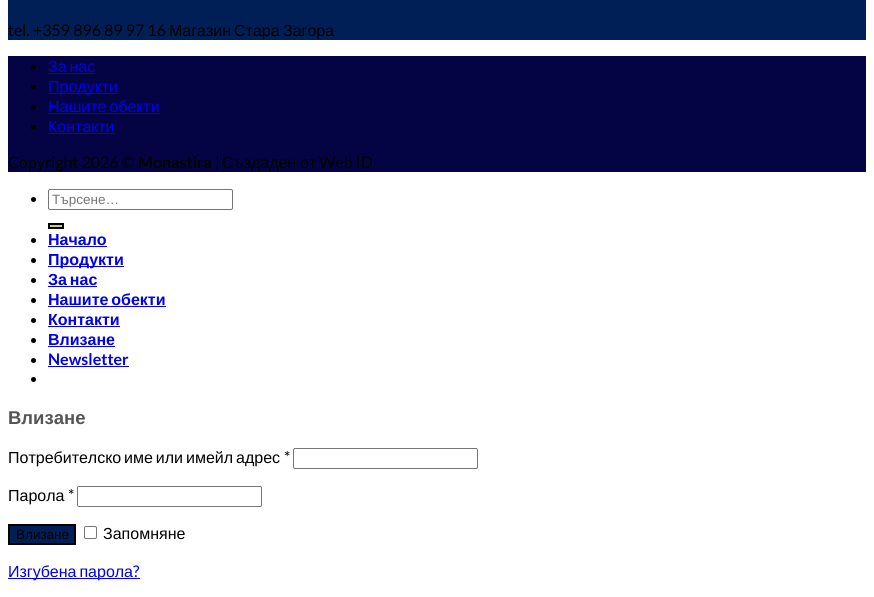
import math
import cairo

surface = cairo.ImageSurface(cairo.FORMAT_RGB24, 874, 597)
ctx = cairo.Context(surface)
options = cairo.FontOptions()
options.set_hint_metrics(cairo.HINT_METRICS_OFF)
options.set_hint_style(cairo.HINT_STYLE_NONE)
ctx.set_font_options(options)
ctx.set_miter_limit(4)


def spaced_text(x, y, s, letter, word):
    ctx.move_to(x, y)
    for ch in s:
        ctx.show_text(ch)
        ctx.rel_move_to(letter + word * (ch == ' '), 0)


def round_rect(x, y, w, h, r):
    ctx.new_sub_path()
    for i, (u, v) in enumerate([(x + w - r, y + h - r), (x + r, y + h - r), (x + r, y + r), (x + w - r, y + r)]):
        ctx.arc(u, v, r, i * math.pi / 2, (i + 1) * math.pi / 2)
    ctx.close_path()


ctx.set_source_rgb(1, 1, 1)
ctx.paint()
ctx.set_source_rgb(0, 0.122, 0.337)
ctx.rectangle(8, 0, 858, 40)
ctx.fill()
ctx.select_font_face("Lato")
ctx.set_font_size(16)
ctx.set_source_rgb(0, 0, 0)
ctx.move_to(8, 36)
ctx.show_text("tel. +359 896 89 97 16")
ctx.select_font_face("Liberation Sans")
ctx.move_to(169, 36)
ctx.show_text("Магазин")
ctx.move_to(234, 36)
ctx.show_text("Стара")
ctx.move_to(283, 36)
ctx.show_text("Загора")
ctx.set_source_rgb(0.016, 0.016, 0.267)
ctx.rectangle(8, 56, 858, 116)
ctx.fill()
ctx.set_source_rgb(0, 0, 0)
ctx.arc(33.5, 67.5, 2.5, 0, 2 * math.pi)
ctx.fill()
ctx.set_source_rgb(0, 0, 0.933)
spaced_text(48, 72, "За нас", 0, -1.5)
ctx.rectangle(48, 73, 47, 1)
ctx.fill()
ctx.set_source_rgb(0, 0, 0)
ctx.arc(33.5, 87.5, 2.5, 0, 2 * math.pi)
ctx.fill()
ctx.set_source_rgb(0, 0, 0.933)
ctx.rectangle(48, 93, 70, 1)
ctx.fill()
ctx.move_to(48, 92)
ctx.show_text("Продукти")
ctx.set_source_rgb(0, 0, 0)
ctx.new_path()
ctx.arc(33.5, 107.5, 2.5, 0, 2 * math.pi)
ctx.fill()
ctx.set_source_rgb(0, 0, 0.933)
spaced_text(48, 112, "Нашите обекти", 0, -1.5)
ctx.rectangle(48, 113, 112, 1)
ctx.fill()
ctx.set_source_rgb(0, 0, 0)
ctx.arc(33.5, 127.5, 2.5, 0, 2 * math.pi)
ctx.fill()
ctx.set_source_rgb(0, 0, 0.933)
ctx.move_to(48, 132)
ctx.show_text("Контакти")
ctx.rectangle(48, 133, 67, 1)
ctx.fill()
ctx.select_font_face("Lato")
ctx.set_source_rgb(0, 0, 0)
ctx.move_to(8, 168)
ctx.show_text("Copyright 2026 ©")
ctx.select_font_face("Lato", cairo.FONT_SLANT_NORMAL, cairo.FONT_WEIGHT_BOLD)
ctx.move_to(138, 168)
ctx.show_text("Monastira")
ctx.select_font_face("Lato")
ctx.move_to(215, 168)
ctx.show_text("|")
ctx.select_font_face("Liberation Sans")
ctx.move_to(222, 168)
ctx.show_text("Създаден")
ctx.move_to(300, 168)
ctx.show_text("от")
ctx.select_font_face("Lato")
ctx.move_to(319, 168)
ctx.show_text("Web ID")
ctx.new_path()
ctx.arc(33.5, 199.5, 2.5, 0, 2 * math.pi)
ctx.fill()
round_rect(48.5, 189.5, 184, 20, 1.5)
ctx.set_source_rgb(0.463, 0.463, 0.463)
ctx.set_line_width(1)
ctx.stroke()
ctx.select_font_face("Liberation Sans")
ctx.set_font_size(13.5)
ctx.set_source_rgb(0.459, 0.459, 0.459)
ctx.move_to(52, 204)
ctx.show_text("Търсене…")
ctx.set_source_rgb(0.804, 0.804, 0.431)
ctx.rectangle(49, 224, 14, 4)
ctx.fill_preserve()
ctx.set_source_rgb(0, 0, 0)
ctx.set_line_width(2)
ctx.stroke()
ctx.arc(33.5, 240.5, 2.5, 0, 2 * math.pi)
ctx.fill()
ctx.select_font_face("Liberation Sans", cairo.FONT_SLANT_NORMAL, cairo.FONT_WEIGHT_BOLD)
ctx.set_font_size(16)
ctx.set_source_rgb(0, 0, 0.933)
ctx.move_to(48, 245)
ctx.show_text("Начало")
ctx.rectangle(48, 246, 59, 1)
ctx.fill()
ctx.set_source_rgb(0, 0, 0)
ctx.arc(33.5, 260.5, 2.5, 0, 2 * math.pi)
ctx.fill()
ctx.set_source_rgb(0, 0, 0.933)
ctx.rectangle(48, 266, 76, 1)
ctx.fill()
ctx.move_to(48, 265)
ctx.show_text("Продукти")
ctx.set_source_rgb(0, 0, 0)
ctx.new_path()
ctx.arc(33.5, 280.5, 2.5, 0, 2 * math.pi)
ctx.fill()
ctx.set_source_rgb(0, 0, 0.933)
spaced_text(48, 285, "За нас", 0, -1.5)
ctx.rectangle(48, 286, 49, 1)
ctx.fill()
ctx.set_source_rgb(0, 0, 0)
ctx.arc(33.5, 300.5, 2.5, 0, 2 * math.pi)
ctx.fill()
ctx.set_source_rgb(0, 0, 0.933)
spaced_text(48, 305, "Нашите обекти", 0, -1.5)
ctx.rectangle(48, 306, 118, 1)
ctx.fill()
ctx.set_source_rgb(0, 0, 0)
ctx.arc(33.5, 320.5, 2.5, 0, 2 * math.pi)
ctx.fill()
ctx.set_source_rgb(0, 0, 0.933)
ctx.move_to(48, 325)
ctx.show_text("Контакти")
ctx.rectangle(48, 326, 72, 1)
ctx.fill()
ctx.set_source_rgb(0, 0, 0)
ctx.arc(33.5, 340.5, 2.5, 0, 2 * math.pi)
ctx.fill()
ctx.set_source_rgb(0, 0, 0.933)
ctx.move_to(48, 345)
ctx.show_text("Влизане")
ctx.rectangle(48, 346, 67, 1)
ctx.fill()
ctx.set_source_rgb(0, 0, 0)
ctx.arc(33.5, 360.5, 2.5, 0, 2 * math.pi)
ctx.fill()
ctx.select_font_face("Lato", cairo.FONT_SLANT_NORMAL, cairo.FONT_WEIGHT_BOLD)
ctx.set_source_rgb(0, 0, 0.933)
ctx.move_to(48, 365)
ctx.show_text("Newsletter")
ctx.rectangle(48, 366, 81, 1)
ctx.fill()
ctx.set_source_rgb(0, 0, 0)
ctx.arc(33.5, 379.5, 2.5, 0, 2 * math.pi)
ctx.fill()
ctx.select_font_face("Liberation Sans", cairo.FONT_SLANT_NORMAL, cairo.FONT_WEIGHT_BOLD)
ctx.set_font_size(18.5)
ctx.set_source_rgb(0.333, 0.333, 0.333)
ctx.move_to(8, 424)
ctx.show_text("Влизане")
ctx.select_font_face("Liberation Sans")
ctx.set_font_size(16)
ctx.set_source_rgb(0, 0, 0)
spaced_text(8, 463, "Потребителско име или имейл адрес", 0, -1.5)
ctx.select_font_face("Lato")
ctx.move_to(284, 463)
ctx.show_text("*")
round_rect(293.5, 448.5, 184, 20, 1.5)
ctx.set_source_rgb(0.463, 0.463, 0.463)
ctx.set_line_width(1)
ctx.stroke()
ctx.select_font_face("Liberation Sans")
ctx.set_source_rgb(0, 0, 0)
ctx.move_to(8, 501)
ctx.show_text("Парола")
ctx.select_font_face("Lato")
ctx.move_to(68, 501)
ctx.show_text("*")
round_rect(77.5, 486.5, 184, 20, 1.5)
ctx.set_source_rgb(0.463, 0.463, 0.463)
ctx.stroke()
ctx.set_source_rgb(0, 0.122, 0.337)
ctx.rectangle(9, 525, 66, 19)
ctx.fill_preserve()
ctx.set_source_rgb(0, 0, 0)
ctx.set_line_width(2)
ctx.stroke()
ctx.select_font_face("Liberation Sans")
ctx.set_font_size(13.5)
ctx.move_to(16, 539)
ctx.show_text("Влизане")
round_rect(84.5, 526.5, 12, 12, 1.5)
ctx.set_source_rgb(0.463, 0.463, 0.463)
ctx.set_line_width(1)
ctx.stroke()
ctx.set_font_size(16)
ctx.set_source_rgb(0, 0, 0)
ctx.move_to(103, 539)
ctx.show_text("Запомняне")
ctx.set_source_rgb(0, 0, 0.933)
ctx.rectangle(8, 578, 132, 1)
ctx.fill()
spaced_text(8, 577, "Изгубена парола", 0, -1.5)
ctx.select_font_face("Lato")
ctx.move_to(133, 577)
ctx.show_text("?")
surface.write_to_png("page.png")
